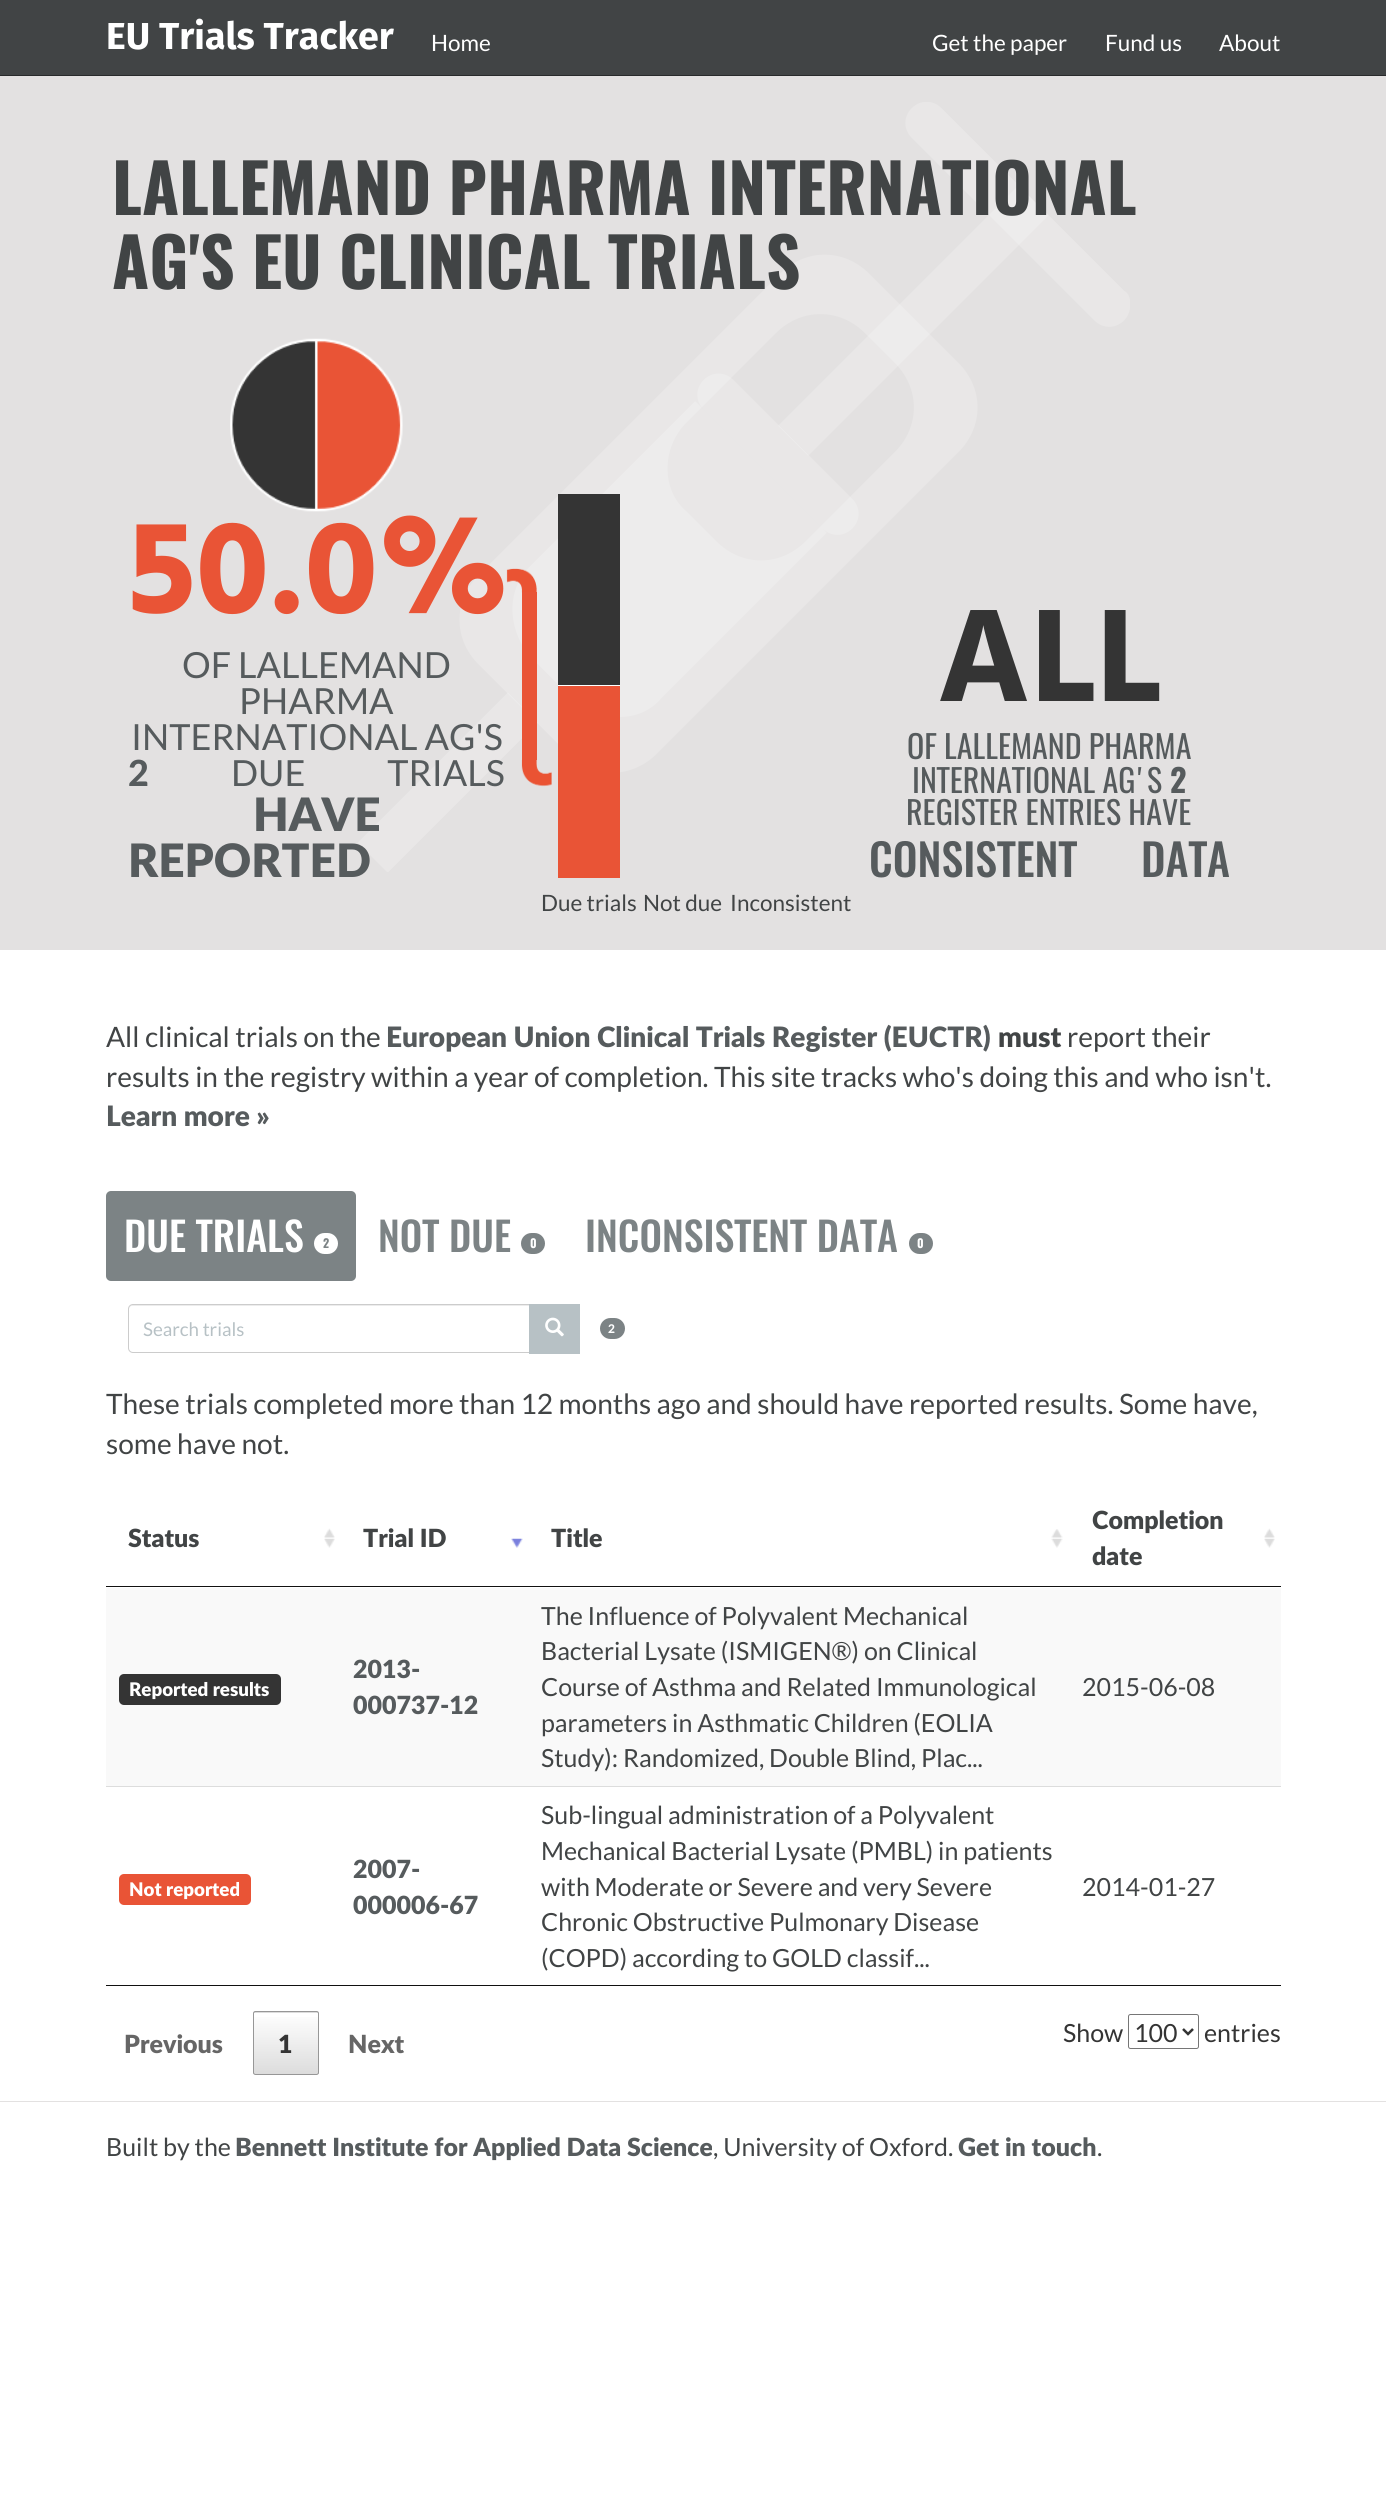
import math
import cairo

surface = cairo.ImageSurface(cairo.FORMAT_RGB24, 1386, 2512)
ctx = cairo.Context(surface)
options = cairo.FontOptions()
options.set_hint_metrics(cairo.HINT_METRICS_OFF)
options.set_hint_style(cairo.HINT_STYLE_NONE)
ctx.set_font_options(options)
ctx.set_miter_limit(4)


def spaced_text(x, y, s, letter, word):
    ctx.move_to(x, y)
    for ch in s:
        ctx.show_text(ch)
        ctx.rel_move_to(letter + word * (ch == ' '), 0)


def round_rect(x, y, w, h, r):
    ctx.new_sub_path()
    for i, (u, v) in enumerate([(x + w - r, y + h - r), (x + r, y + h - r), (x + r, y + r), (x + w - r, y + r)]):
        ctx.arc(u, v, r, i * math.pi / 2, (i + 1) * math.pi / 2)
    ctx.close_path()


def picture(path, x, y, w, h):
    ctx.save()
    ctx.set_source_surface(cairo.ImageSurface.create_from_png(path), x, y)
    ctx.rectangle(x, y, w, h)
    ctx.fill()
    ctx.restore()


ctx.set_source_rgb(1, 1, 1)
ctx.paint()
ctx.set_source_rgb(0.255, 0.267, 0.271)
ctx.rectangle(0, 0, 1386, 75)
ctx.fill()
ctx.set_source_rgb(0.157, 0.165, 0.169)
ctx.rectangle(0, 75, 1386, 1)
ctx.fill()
ctx.select_font_face("Fira Sans", cairo.FONT_SLANT_NORMAL, cairo.FONT_WEIGHT_BOLD)
ctx.set_font_size(37.5)
ctx.set_source_rgb(1, 1, 1)
ctx.move_to(106, 49)
ctx.show_text("EU Trials Tracker")
ctx.select_font_face("Lato")
ctx.set_font_size(22.5)
ctx.move_to(431, 51)
ctx.show_text("Home")
ctx.move_to(932, 51)
ctx.show_text("Get the paper")
ctx.move_to(1105, 51)
ctx.show_text("Fund us")
ctx.move_to(1219, 51)
ctx.show_text("About")
ctx.set_source_rgb(0.89, 0.882, 0.882)
ctx.rectangle(0, 76, 1386, 874)
ctx.fill()
picture("img1.png", 358, 102, 772, 770)
ctx.select_font_face("Oswald", cairo.FONT_SLANT_NORMAL, cairo.FONT_WEIGHT_BOLD)
ctx.set_font_size(67.5)
ctx.set_source_rgb(0.255, 0.267, 0.271)
ctx.move_to(112, 215)
ctx.show_text("LALLEMAND PHARMA INTERNATIONAL")
ctx.move_to(112, 289)
ctx.show_text("AG'S EU CLINICAL TRIALS")
picture("img2.png", 230, 338, 173, 174)
ctx.select_font_face("Hind", cairo.FONT_SLANT_NORMAL, cairo.FONT_WEIGHT_BOLD)
ctx.set_font_size(135)
ctx.set_source_rgb(0.914, 0.329, 0.212)
ctx.move_to(128, 613)
ctx.show_text("50.0%")
picture("img3.png", 506, 568, 31, 25)
ctx.rectangle(522, 592, 15, 168)
ctx.fill()
picture("img4.png", 521, 760, 31, 27)
ctx.select_font_face("Lato")
ctx.set_font_size(36)
ctx.set_source_rgb(0.337, 0.357, 0.365)
ctx.move_to(182, 678)
ctx.show_text("OF LALLEMAND")
ctx.move_to(239, 714)
ctx.show_text("PHARMA")
ctx.move_to(131, 750)
ctx.show_text("INTERNATIONAL AG'S")
ctx.select_font_face("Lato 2 Black")
ctx.move_to(128, 786)
ctx.show_text("2")
ctx.select_font_face("Lato")
spaced_text(231, 786, "DUE TRIALS", 0, 75)
ctx.select_font_face("Lato Black")
ctx.set_font_size(46)
ctx.move_to(253, 831)
ctx.show_text("HAVE")
ctx.move_to(128, 877)
ctx.show_text("REPORTED")
ctx.select_font_face("Hind", cairo.FONT_SLANT_NORMAL, cairo.FONT_WEIGHT_BOLD)
ctx.set_font_size(135)
ctx.set_source_rgb(0.204, 0.204, 0.204)
ctx.move_to(937, 701)
ctx.show_text("ALL")
ctx.select_font_face("Oswald")
ctx.set_font_size(32)
ctx.set_source_rgb(0.337, 0.357, 0.365)
ctx.move_to(907, 759)
ctx.show_text("OF LALLEMAND PHARMA")
ctx.move_to(912, 793)
ctx.show_text("INTERNATIONAL AG'S")
ctx.select_font_face("Oswald", cairo.FONT_SLANT_NORMAL, cairo.FONT_WEIGHT_BOLD)
ctx.move_to(1170, 793)
ctx.show_text("2")
ctx.select_font_face("Oswald")
ctx.move_to(906, 825)
ctx.show_text("REGISTER ENTRIES HAVE")
ctx.select_font_face("Oswald Medium")
ctx.set_font_size(44)
spaced_text(869, 877, "CONSISTENT DATA", 0, 53)
ctx.set_source_rgb(0.204, 0.204, 0.204)
ctx.rectangle(558, 494, 62, 191)
ctx.fill()
ctx.set_source_rgb(0.914, 0.329, 0.212)
ctx.rectangle(558, 686, 62, 192)
ctx.fill()
ctx.set_source_rgb(1, 1, 1)
ctx.rectangle(558, 685, 62, 1)
ctx.fill()
ctx.select_font_face("Lato")
ctx.set_font_size(22.5)
ctx.set_source_rgb(0.255, 0.267, 0.271)
ctx.move_to(541, 911)
ctx.show_text("Due trials")
ctx.move_to(643, 911)
ctx.show_text("Not due")
ctx.move_to(730, 911)
ctx.show_text("Inconsistent")
ctx.set_font_size(28.1)
ctx.move_to(106, 1047)
ctx.show_text("All clinical trials on the")
ctx.select_font_face("Lato Black")
ctx.set_source_rgb(0.337, 0.357, 0.365)
ctx.move_to(386, 1047)
ctx.show_text("European Union Clinical Trials Register (EUCTR)")
ctx.set_source_rgb(0.255, 0.267, 0.271)
ctx.move_to(998, 1047)
ctx.show_text("must")
ctx.select_font_face("Lato")
ctx.move_to(1067, 1047)
ctx.show_text("report their")
ctx.move_to(106, 1087)
ctx.show_text("results in the registry within a year of completion. This site tracks who's doing this and who isn't.")
ctx.select_font_face("Lato Black")
ctx.set_source_rgb(0.337, 0.357, 0.365)
ctx.move_to(106, 1126)
ctx.show_text("Learn more »")
ctx.set_source_rgb(0.486, 0.514, 0.522)
round_rect(106, 1191, 250, 90, 5)
ctx.fill()
ctx.select_font_face("Oswald Medium")
ctx.set_font_size(40)
ctx.set_source_rgb(1, 1, 1)
ctx.move_to(124, 1252)
ctx.show_text("DUE TRIALS")
round_rect(314, 1233, 24, 21, 10.5)
ctx.fill()
ctx.select_font_face("Oswald", cairo.FONT_SLANT_NORMAL, cairo.FONT_WEIGHT_BOLD)
ctx.set_font_size(12)
ctx.set_source_rgb(0.486, 0.514, 0.522)
ctx.move_to(323, 1248)
ctx.show_text("2")
ctx.select_font_face("Oswald Medium")
ctx.set_font_size(40)
ctx.move_to(378, 1252)
ctx.show_text("NOT DUE")
round_rect(521, 1233, 24, 21, 10.5)
ctx.fill()
ctx.select_font_face("Oswald", cairo.FONT_SLANT_NORMAL, cairo.FONT_WEIGHT_BOLD)
ctx.set_font_size(12)
ctx.set_source_rgb(1, 1, 1)
ctx.move_to(530, 1248)
ctx.show_text("0")
ctx.select_font_face("Oswald Medium")
ctx.set_font_size(40)
ctx.set_source_rgb(0.486, 0.514, 0.522)
ctx.move_to(585, 1252)
ctx.show_text("INCONSISTENT DATA")
round_rect(909, 1233, 24, 21, 10.5)
ctx.fill()
ctx.select_font_face("Oswald", cairo.FONT_SLANT_NORMAL, cairo.FONT_WEIGHT_BOLD)
ctx.set_font_size(12)
ctx.set_source_rgb(1, 1, 1)
ctx.move_to(917, 1248)
ctx.show_text("0")
ctx.set_source_rgb(0.925, 0.925, 0.925)
ctx.new_path()
ctx.move_to(132, 1306)
ctx.line_to(529, 1306)
ctx.line_to(529, 1305)
ctx.line_to(133, 1305)
ctx.curve_to(130, 1305, 129, 1307, 129, 1310)
ctx.curve_to(129, 1308, 130, 1306, 132, 1306)
ctx.close_path()
ctx.fill()
ctx.new_path()
ctx.move_to(133, 1304.5)
ctx.line_to(529.5, 1304.5)
ctx.line_to(529.5, 1352.5)
ctx.line_to(133, 1352.5)
ctx.curve_to(130.5, 1352.5, 128.5, 1350.5, 128.5, 1348)
ctx.line_to(128.5, 1309)
ctx.curve_to(128.5, 1306.5, 130.5, 1304.5, 133, 1304.5)
ctx.close_path()
ctx.set_source_rgb(0.8, 0.8, 0.8)
ctx.set_line_width(1)
ctx.stroke()
ctx.select_font_face("Lato")
ctx.set_font_size(18.75)
ctx.set_source_rgb(0.718, 0.757, 0.773)
ctx.move_to(143, 1336)
ctx.show_text("Search trials")
ctx.rectangle(529, 1304, 51, 50)
ctx.fill()
picture("img5.png", 545, 1317, 19, 20)
ctx.set_source_rgb(0.486, 0.514, 0.522)
round_rect(600, 1318, 25, 21, 10.5)
ctx.fill()
ctx.select_font_face("Lato 2 Black")
ctx.set_font_size(12)
ctx.set_source_rgb(1, 1, 1)
ctx.move_to(608, 1333)
ctx.show_text("2")
ctx.select_font_face("Lato")
ctx.set_font_size(28.1)
ctx.set_source_rgb(0.255, 0.267, 0.271)
ctx.move_to(106, 1414)
ctx.show_text("These trials completed more than 12 months ago and should have reported results. Some have,")
ctx.move_to(106, 1454)
ctx.show_text("some have not.")
ctx.set_source_rgb(0.067, 0.067, 0.067)
ctx.rectangle(106, 1985, 1175, 1)
ctx.fill()
picture("img6.png", 324, 1528, 11, 20)
ctx.rectangle(106, 1586, 1175, 1)
ctx.fill()
ctx.select_font_face("Lato Black")
ctx.set_font_size(25)
ctx.set_source_rgb(0.255, 0.267, 0.271)
ctx.move_to(128, 1547)
ctx.show_text("Status")
picture("img7.png", 511, 1538, 12, 10)
ctx.move_to(363, 1547)
ctx.show_text("Trial ID")
picture("img8.png", 1051, 1529, 12, 19)
ctx.move_to(551, 1547)
ctx.show_text("Title")
picture("img9.png", 1264, 1528, 11, 20)
ctx.move_to(1092, 1529)
ctx.show_text("Completion")
ctx.move_to(1092, 1565)
ctx.show_text("date")
ctx.set_source_rgb(0.976, 0.976, 0.976)
ctx.rectangle(106, 1588, 1175, 198)
ctx.fill()
ctx.set_source_rgb(0.204, 0.204, 0.204)
round_rect(119, 1674, 162, 31, 5)
ctx.fill()
ctx.set_font_size(18.75)
ctx.set_source_rgb(1, 1, 1)
ctx.move_to(129, 1696)
ctx.show_text("Reported results")
ctx.set_font_size(25)
ctx.set_source_rgb(0.337, 0.357, 0.365)
ctx.move_to(353, 1678)
ctx.show_text("2013-")
ctx.move_to(353, 1714)
ctx.show_text("000737-12")
ctx.select_font_face("Lato")
ctx.set_source_rgb(0.255, 0.267, 0.271)
ctx.move_to(541, 1625)
ctx.show_text("The Influence of Polyvalent Mechanical")
ctx.move_to(541, 1660)
ctx.show_text("Bacterial Lysate (ISMIGEN®) on Clinical")
ctx.move_to(541, 1696)
ctx.show_text("Course of Asthma and Related Immunological")
ctx.move_to(541, 1732)
ctx.show_text("parameters in Asthmatic Children (EOLIA")
ctx.move_to(541, 1767)
ctx.show_text("Study): Randomized, Double Blind, Plac...")
ctx.move_to(1082, 1696)
ctx.show_text("2015-06-08")
ctx.set_source_rgb(0.867, 0.867, 0.867)
ctx.rectangle(106, 1786, 1175, 1)
ctx.fill()
ctx.set_source_rgb(0.914, 0.329, 0.212)
round_rect(119, 1874, 132, 31, 5)
ctx.fill()
ctx.select_font_face("Lato Black")
ctx.set_font_size(18.75)
ctx.set_source_rgb(1, 1, 1)
ctx.move_to(129, 1896)
ctx.show_text("Not reported")
ctx.set_font_size(25)
ctx.set_source_rgb(0.337, 0.357, 0.365)
ctx.move_to(353, 1878)
ctx.show_text("2007-")
ctx.move_to(353, 1914)
ctx.show_text("000006-67")
ctx.select_font_face("Lato")
ctx.set_source_rgb(0.255, 0.267, 0.271)
ctx.move_to(541, 1824)
ctx.show_text("Sub-lingual administration of a Polyvalent")
ctx.move_to(541, 1860)
ctx.show_text("Mechanical Bacterial Lysate (PMBL) in patients")
ctx.move_to(541, 1896)
ctx.show_text("with Moderate or Severe and very Severe")
ctx.move_to(541, 1931)
ctx.show_text("Chronic Obstructive Pulmonary Disease")
ctx.move_to(541, 1967)
ctx.show_text("(COPD) according to GOLD classif...")
ctx.move_to(1082, 1896)
ctx.show_text("2014-01-27")
ctx.select_font_face("Lato Black")
ctx.set_source_rgb(0.4, 0.4, 0.4)
ctx.move_to(124, 2053)
ctx.show_text("Previous")
ctx.save()
round_rect(253, 2011, 66, 64, 2.5)
ctx.clip()
gradient = cairo.LinearGradient(286, 1951, 286, 2013)
gradient.add_color_stop_rgba(0, 1, 1, 1, 1)
gradient.add_color_stop_rgba(1, 0.863, 0.863, 0.863, 1)
ctx.set_source(gradient)
ctx.rectangle(253, 2011, 66, 2)
ctx.fill()
ctx.restore()
gradient = cairo.LinearGradient(286, 2013, 286, 2074)
gradient.add_color_stop_rgba(0, 1, 1, 1, 1)
gradient.add_color_stop_rgba(1, 0.863, 0.863, 0.863, 1)
ctx.set_source(gradient)
ctx.rectangle(253, 2017, 66, 57)
ctx.fill()
round_rect(253.5, 2011.5, 65, 63, 2)
ctx.set_source_rgb(0.592, 0.592, 0.592)
ctx.stroke()
ctx.set_source_rgb(0.204, 0.204, 0.204)
ctx.move_to(278, 2053)
ctx.show_text("1")
ctx.set_source_rgb(0.4, 0.4, 0.4)
ctx.move_to(348, 2053)
ctx.show_text("Next")
ctx.select_font_face("Lato")
ctx.set_source_rgb(0.204, 0.204, 0.204)
ctx.move_to(1063, 2042)
ctx.show_text("Show")
round_rect(1128.5, 2014.5, 70, 34, 2)
ctx.set_source_rgb(0.463, 0.463, 0.463)
ctx.stroke()
ctx.new_path()
ctx.move_to(1183, 2029)
ctx.line_to(1188, 2034)
ctx.line_to(1193, 2029)
ctx.set_source_rgb(0.2, 0.2, 0.2)
ctx.set_line_width(2.5)
ctx.stroke()
ctx.set_source_rgb(0.204, 0.204, 0.204)
ctx.move_to(1134, 2042)
ctx.show_text("100")
ctx.move_to(1204, 2042)
ctx.show_text("entries")
ctx.set_source_rgb(0.89, 0.882, 0.882)
ctx.rectangle(0, 2101, 1386, 1)
ctx.fill()
ctx.set_source_rgb(0.255, 0.267, 0.271)
ctx.move_to(106, 2156)
ctx.show_text("Built by the")
ctx.select_font_face("Lato Black")
ctx.set_source_rgb(0.337, 0.357, 0.365)
ctx.move_to(235, 2156)
ctx.show_text("Bennett Institute for Applied Data Science")
ctx.select_font_face("Lato")
ctx.set_source_rgb(0.255, 0.267, 0.271)
ctx.move_to(713, 2156)
ctx.show_text(", University of Oxford.")
ctx.select_font_face("Lato Black")
ctx.set_source_rgb(0.337, 0.357, 0.365)
ctx.move_to(958, 2156)
ctx.show_text("Get in touch")
ctx.select_font_face("Lato")
ctx.set_source_rgb(0.255, 0.267, 0.271)
ctx.move_to(1097, 2156)
ctx.show_text(".")
surface.write_to_png("page.png")
